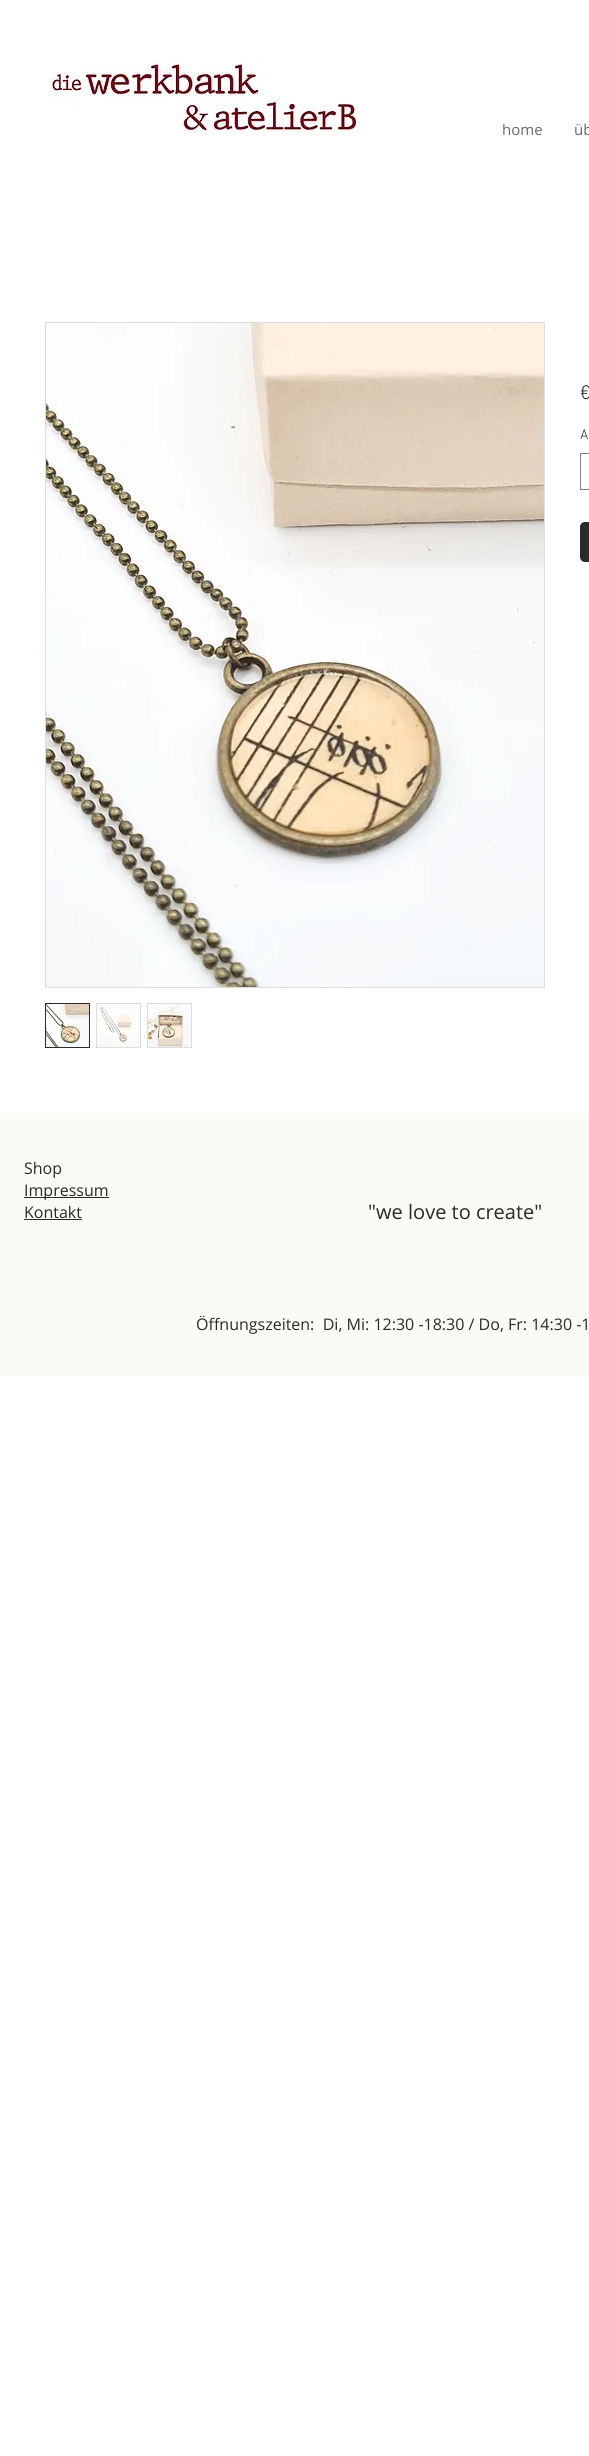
import math
import cairo

surface = cairo.ImageSurface(cairo.FORMAT_RGB24, 589, 2456)
ctx = cairo.Context(surface)
options = cairo.FontOptions()
options.set_hint_metrics(cairo.HINT_METRICS_OFF)
options.set_hint_style(cairo.HINT_STYLE_NONE)
ctx.set_font_options(options)
ctx.set_miter_limit(4)


def round_rect(x, y, w, h, r):
    ctx.new_sub_path()
    for i, (u, v) in enumerate([(x + w - r, y + h - r), (x + r, y + h - r), (x + r, y + r), (x + w - r, y + r)]):
        ctx.arc(u, v, r, i * math.pi / 2, (i + 1) * math.pi / 2)
    ctx.close_path()


def picture(path, x, y, w, h):
    ctx.save()
    ctx.set_source_surface(cairo.ImageSurface.create_from_png(path), x, y)
    ctx.rectangle(x, y, w, h)
    ctx.fill()
    ctx.restore()


ctx.set_source_rgb(1, 1, 1)
ctx.paint()
picture("img1.png", 48, 61, 312, 75)
ctx.select_font_face("Open Sans")
ctx.set_font_size(15)
ctx.set_source_rgb(0.412, 0.412, 0.412)
ctx.move_to(502, 135)
ctx.show_text("home")
ctx.move_to(574, 135)
ctx.show_text("üb")
ctx.rectangle(45.5, 322.5, 499, 665)
ctx.set_source_rgb(0.867, 0.867, 0.867)
ctx.set_line_width(1)
ctx.stroke()
picture("img2.png", 46, 323, 498, 664)
ctx.rectangle(45.5, 1003.5, 44, 44)
ctx.set_source_rgb(0.165, 0.165, 0.165)
ctx.stroke()
picture("img3.png", 46, 1004, 43, 43)
ctx.set_source_rgb(0.867, 0.867, 0.867)
ctx.rectangle(96, 1003, 45, 45)
ctx.fill()
picture("img4.png", 97, 1004, 43, 43)
ctx.rectangle(147, 1003, 45, 45)
ctx.fill()
picture("img5.png", 148, 1004, 43, 43)
ctx.select_font_face("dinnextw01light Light")
ctx.set_font_size(20)
ctx.set_source_rgb(0.165, 0.165, 0.165)
ctx.move_to(580, 399)
ctx.show_text("€")
ctx.set_font_size(14)
ctx.move_to(580, 439)
ctx.show_text("A")
ctx.rectangle(580.5, 453.5, 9, 36)
ctx.set_source_rgb(0.498, 0.498, 0.498)
ctx.stroke()
ctx.set_source_rgb(0.165, 0.165, 0.165)
round_rect(580, 522, 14, 40, 5)
ctx.fill()
ctx.set_source_rgb(0.98, 0.98, 0.961)
ctx.rectangle(0, 1113, 589, 263)
ctx.fill()
ctx.select_font_face("Open Sans")
ctx.set_font_size(16)
ctx.set_source_rgb(0.165, 0.165, 0.165)
ctx.move_to(24, 1174)
ctx.show_text("Shop")
ctx.rectangle(24, 1197, 85, 1)
ctx.fill()
ctx.move_to(24, 1196)
ctx.show_text("Impressum")
ctx.move_to(24, 1218)
ctx.show_text("Kontakt")
ctx.rectangle(24, 1219, 58, 1)
ctx.fill()
ctx.set_font_size(20)
ctx.move_to(368, 1219)
ctx.show_text("\"we love to create\"")
ctx.set_font_size(16)
ctx.move_to(196, 1330)
ctx.show_text("Öffnungszeiten:  Di, Mi: 12:30 -18:30 / Do, Fr: 14:30 -1")
surface.write_to_png("page.png")
